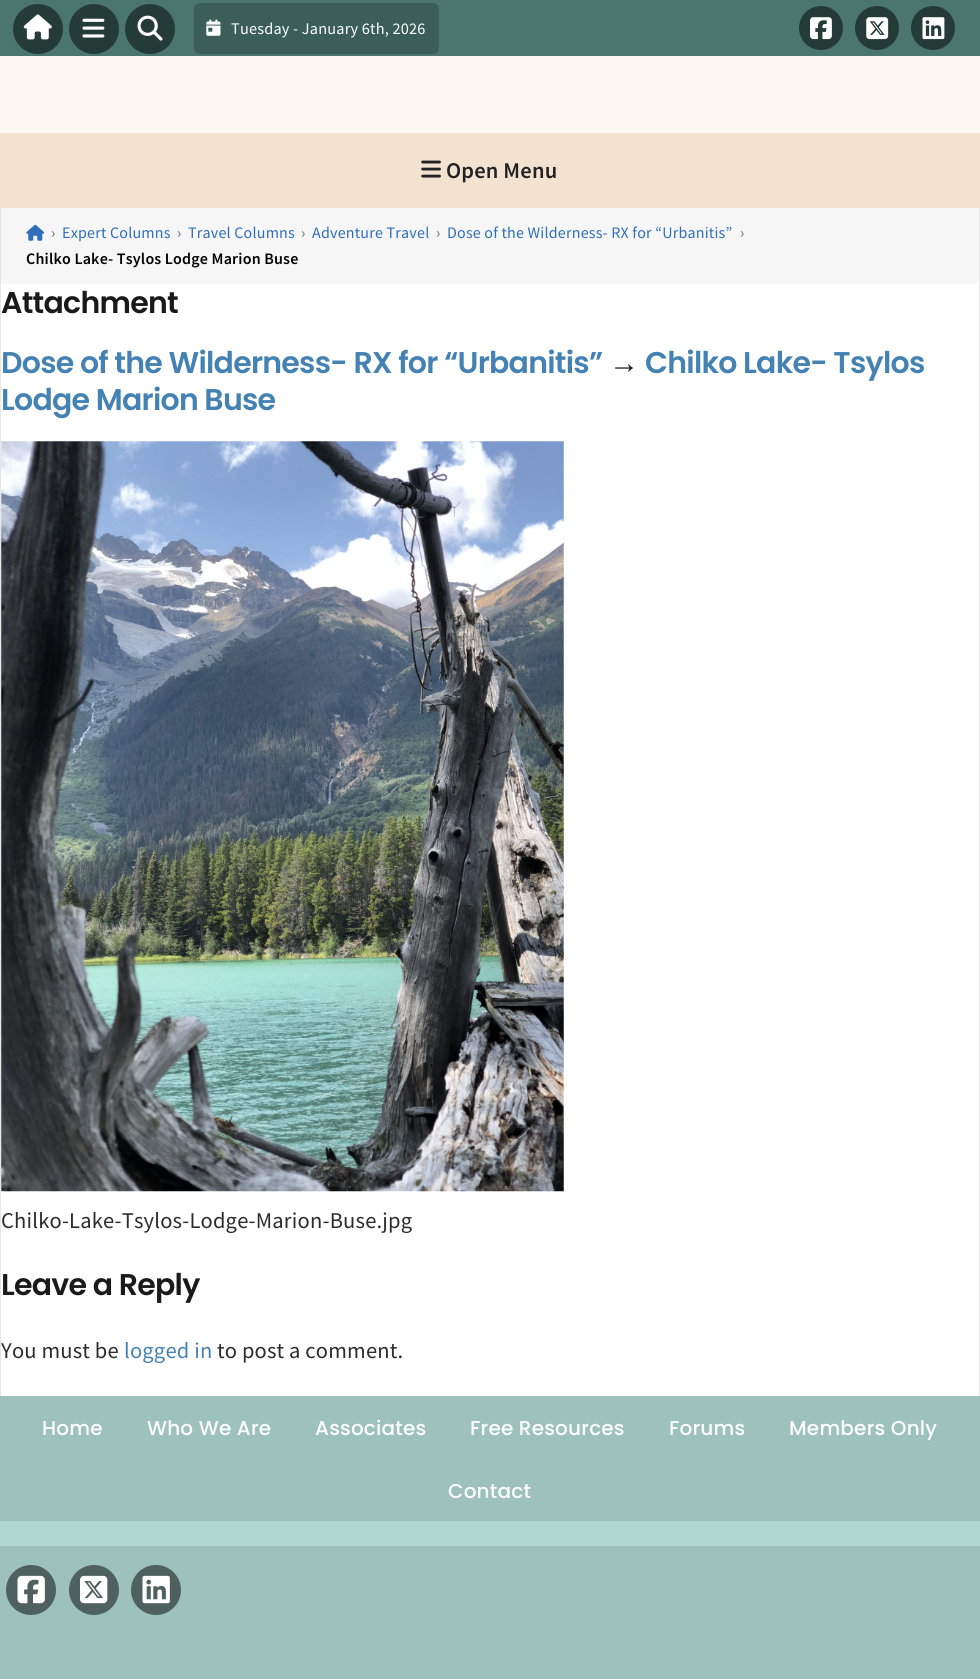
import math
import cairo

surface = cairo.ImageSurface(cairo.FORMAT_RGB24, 980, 1679)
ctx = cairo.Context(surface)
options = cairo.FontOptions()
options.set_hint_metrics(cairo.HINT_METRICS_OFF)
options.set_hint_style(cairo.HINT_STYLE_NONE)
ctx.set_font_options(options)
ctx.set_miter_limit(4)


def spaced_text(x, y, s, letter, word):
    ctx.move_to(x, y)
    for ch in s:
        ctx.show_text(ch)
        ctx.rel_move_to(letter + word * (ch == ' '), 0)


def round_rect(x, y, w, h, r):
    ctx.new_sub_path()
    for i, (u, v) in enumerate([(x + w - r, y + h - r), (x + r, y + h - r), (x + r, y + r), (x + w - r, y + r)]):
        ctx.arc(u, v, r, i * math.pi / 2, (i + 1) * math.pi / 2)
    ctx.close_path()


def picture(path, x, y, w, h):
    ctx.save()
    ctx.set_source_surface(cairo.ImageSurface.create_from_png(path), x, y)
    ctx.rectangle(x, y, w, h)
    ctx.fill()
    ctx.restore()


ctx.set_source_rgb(0.996, 0.976, 0.941)
ctx.paint()
ctx.set_source_rgb(0.29, 0.463, 0.431)
ctx.rectangle(0, 0, 980, 56)
ctx.fill()
ctx.set_source_rgb(0.145, 0.231, 0.216)
ctx.arc(38, 29, 25, 0, 2 * math.pi)
ctx.fill()
picture("img1.png", 23, 14, 29, 26)
ctx.arc(94, 29, 25, 0, 2 * math.pi)
ctx.fill()
picture("img2.png", 82, 18, 23, 20)
ctx.arc(150, 29, 25, 0, 2 * math.pi)
ctx.fill()
picture("img3.png", 137, 15, 26, 26)
ctx.set_source_rgb(0.231, 0.369, 0.345)
round_rect(194, 3, 245, 51, 6)
ctx.fill()
picture("img4.png", 206, 19, 15, 17)
ctx.select_font_face("Source Sans Pro")
ctx.set_font_size(16.25)
ctx.set_source_rgb(1, 1, 1)
spaced_text(231, 34, "Tuesday - January 6th, 2026", 0.2, 0)
ctx.set_source_rgb(0.145, 0.231, 0.216)
ctx.new_path()
ctx.arc(821, 28, 22, 0, 2 * math.pi)
ctx.fill()
picture("img5.png", 810, 17, 22, 23)
ctx.arc(877, 28, 22, 0, 2 * math.pi)
ctx.fill()
picture("img6.png", 866, 17, 23, 23)
ctx.arc(933, 28, 22, 0, 2 * math.pi)
ctx.fill()
picture("img7.png", 922, 17, 23, 23)
ctx.set_source_rgb(0.953, 0.886, 0.816)
ctx.rectangle(0, 133, 980, 75)
ctx.fill()
picture("img8.png", 421, 160, 20, 18)
ctx.select_font_face("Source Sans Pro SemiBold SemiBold")
ctx.set_font_size(22.5)
ctx.set_source_rgb(0.133, 0.133, 0.133)
spaced_text(446, 178, "Open Menu", 0.2, 0)
ctx.set_source_rgb(1, 1, 1)
ctx.rectangle(1, 278, 978, 1118)
ctx.fill()
ctx.set_source_rgb(0.902, 0.902, 0.902)
ctx.rectangle(979, 208, 1, 1188)
ctx.fill()
ctx.rectangle(0, 208, 1, 1188)
ctx.fill()
ctx.set_source_rgb(0.961, 0.961, 0.961)
ctx.new_path()
ctx.move_to(1, 208)
ctx.line_to(979, 208)
ctx.line_to(979, 278)
ctx.curve_to(979, 281.5, 976.5, 284, 973, 284)
ctx.line_to(1, 284)
ctx.close_path()
ctx.fill()
picture("img9.png", 26, 224, 19, 17)
ctx.select_font_face("Source Sans Pro")
ctx.set_font_size(16)
ctx.set_source_rgb(0.4, 0.4, 0.4)
spaced_text(51, 238, "›", 0.2, 0)
ctx.set_source_rgb(0.188, 0.431, 0.733)
spaced_text(62, 238, "Expert Columns", 0.2, 0)
ctx.set_source_rgb(0.4, 0.4, 0.4)
spaced_text(177, 238, "›", 0.2, 0)
ctx.set_source_rgb(0.188, 0.431, 0.733)
spaced_text(188, 238, "Travel Columns", 0.2, 0)
ctx.set_source_rgb(0.4, 0.4, 0.4)
spaced_text(301, 238, "›", 0.2, 0)
ctx.set_source_rgb(0.188, 0.431, 0.733)
spaced_text(312, 238, "Adventure Travel", 0.2, 0)
ctx.set_source_rgb(0.4, 0.4, 0.4)
spaced_text(436, 238, "›", 0.2, 0)
ctx.set_source_rgb(0.188, 0.431, 0.733)
spaced_text(447, 238, "Dose of the Wilderness- RX for “Urbanitis”", 0.2, 0)
ctx.set_source_rgb(0.4, 0.4, 0.4)
spaced_text(740, 238, "›", 0.2, 0)
ctx.select_font_face("Source Sans Pro SemiBold SemiBold")
ctx.set_source_rgb(0, 0, 0)
spaced_text(26, 264, "Chilko Lake- Tsylos Lodge Marion Buse", 0.2, 0)
ctx.select_font_face("Poppins SemiBold")
ctx.set_font_size(30)
ctx.set_source_rgb(0.102, 0.102, 0.102)
spaced_text(1, 313, "Attachment", -0.75, 0)
ctx.set_source_rgb(0.271, 0.51, 0.706)
spaced_text(1, 373, "Dose of the Wilderness- RX for “Urbanitis”", -0.75, 0)
ctx.select_font_face("Liberation Sans", cairo.FONT_SLANT_NORMAL, cairo.FONT_WEIGHT_BOLD)
ctx.set_source_rgb(0.102, 0.102, 0.102)
spaced_text(609, 373, "→", -0.75, 0)
ctx.select_font_face("Poppins SemiBold")
ctx.set_source_rgb(0.271, 0.51, 0.706)
spaced_text(645, 373, "Chilko Lake- Tsylos", -0.75, 0)
spaced_text(1, 410, "Lodge Marion Buse", -0.75, 0)
picture("img10.png", 1, 441, 563, 751)
ctx.select_font_face("Source Sans Pro")
ctx.set_font_size(22.5)
ctx.set_source_rgb(0.173, 0.173, 0.173)
spaced_text(1, 1228, "Chilko-Lake-Tsylos-Lodge-Marion-Buse.jpg", 0.2, 0)
ctx.select_font_face("Poppins SemiBold")
ctx.set_font_size(30)
ctx.set_source_rgb(0.102, 0.102, 0.102)
spaced_text(1, 1295, "Leave a Reply", -0.75, 0)
ctx.select_font_face("Source Sans Pro")
ctx.set_font_size(22.5)
ctx.set_source_rgb(0.173, 0.173, 0.173)
spaced_text(1, 1358, "You must be", 0.2, 0)
ctx.set_source_rgb(0.271, 0.51, 0.706)
spaced_text(124, 1358, "logged in", 0.2, 0)
ctx.set_source_rgb(0.173, 0.173, 0.173)
spaced_text(217, 1358, "to post a comment.", 0.2, 0)
ctx.set_source_rgb(0.682, 0.843, 0.812)
ctx.rectangle(0, 1521, 980, 25)
ctx.fill()
ctx.set_source_rgb(0.616, 0.761, 0.733)
ctx.rectangle(0, 1396, 980, 125)
ctx.fill()
ctx.select_font_face("Poppins Medium")
ctx.set_font_size(20)
ctx.set_source_rgb(1, 1, 1)
spaced_text(42, 1435, "Home", 0.2, 0)
spaced_text(147, 1435, "Who We Are", 0.2, 0)
spaced_text(315, 1435, "Associates", 0.2, 0)
spaced_text(470, 1435, "Free Resources", 0.2, 0)
spaced_text(669, 1435, "Forums", 0.2, 0)
spaced_text(789, 1435, "Members Only", 0.2, 0)
spaced_text(448, 1498, "Contact", 0.2, 0)
ctx.set_source_rgb(0.616, 0.761, 0.733)
ctx.rectangle(0, 1546, 980, 133)
ctx.fill()
ctx.set_source_rgb(0.31, 0.38, 0.369)
ctx.arc(31, 1590, 25, 0, 2 * math.pi)
ctx.fill()
picture("img11.png", 17, 1575, 28, 29)
ctx.arc(94, 1590, 25, 0, 2 * math.pi)
ctx.fill()
picture("img12.png", 80, 1575, 28, 29)
ctx.arc(156, 1590, 25, 0, 2 * math.pi)
ctx.fill()
picture("img13.png", 142, 1575, 28, 29)
surface.write_to_png("page.png")
